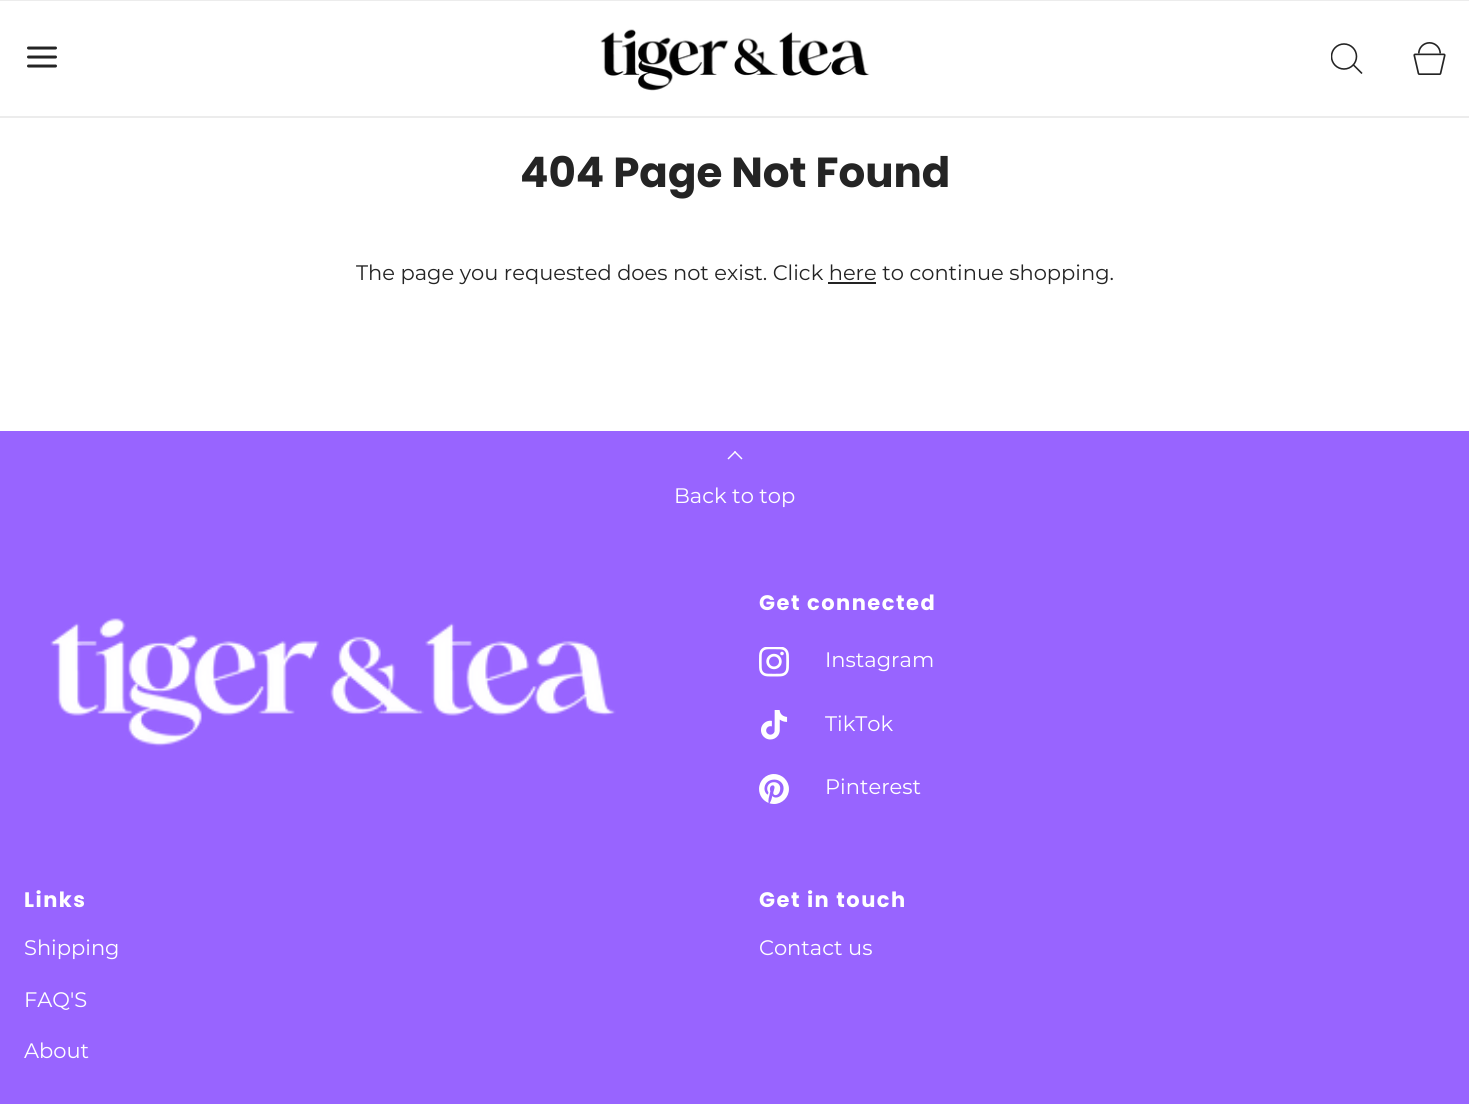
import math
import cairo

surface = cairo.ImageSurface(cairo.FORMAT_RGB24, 1469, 1104)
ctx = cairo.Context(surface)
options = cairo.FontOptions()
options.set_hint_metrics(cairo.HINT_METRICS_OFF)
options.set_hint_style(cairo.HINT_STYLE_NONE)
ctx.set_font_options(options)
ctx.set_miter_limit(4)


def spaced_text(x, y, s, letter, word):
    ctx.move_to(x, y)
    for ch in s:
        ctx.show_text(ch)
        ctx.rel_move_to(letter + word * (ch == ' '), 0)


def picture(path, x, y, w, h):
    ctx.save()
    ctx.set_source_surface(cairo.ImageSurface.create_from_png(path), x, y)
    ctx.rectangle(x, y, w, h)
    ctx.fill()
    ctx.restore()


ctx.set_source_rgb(1, 1, 1)
ctx.paint()
ctx.set_source_rgb(0.922, 0.922, 0.922)
ctx.rectangle(0, 116, 1469, 2)
ctx.fill()
ctx.rectangle(0, 0, 1469, 1)
ctx.fill()
ctx.new_path()
ctx.move_to(28.5, 57)
ctx.line_to(55.5, 57)
ctx.move_to(28.5, 48)
ctx.line_to(55.5, 48)
ctx.move_to(28.5, 66)
ctx.line_to(55.5, 66)
ctx.set_source_rgb(0.141, 0.141, 0.141)
ctx.set_line_width(3)
ctx.set_line_cap(cairo.LINE_CAP_ROUND)
ctx.set_line_join(cairo.LINE_JOIN_ROUND)
ctx.stroke()
picture("img1.png", 600, 29, 270, 62)
ctx.save()
ctx.rectangle(1331, 42, 33, 33)
ctx.clip()
ctx.arc(1344, 56.5, 12.5, 0, 2 * math.pi)
ctx.set_line_width(1.6)
ctx.set_line_cap(cairo.LINE_CAP_BUTT)
ctx.set_line_join(cairo.LINE_JOIN_MITER)
ctx.stroke()
ctx.restore()
ctx.new_path()
ctx.move_to(1353, 64.5)
ctx.line_to(1362, 73.5)
ctx.set_line_width(1.6)
ctx.set_line_cap(cairo.LINE_CAP_BUTT)
ctx.set_line_join(cairo.LINE_JOIN_MITER)
ctx.stroke()
picture("img2.png", 1413, 42, 33, 33)
ctx.select_font_face("Poppins", cairo.FONT_SLANT_NORMAL, cairo.FONT_WEIGHT_BOLD)
ctx.set_font_size(42)
ctx.move_to(520, 187)
ctx.show_text("404 Page Not Found")
ctx.select_font_face("Montserrat")
ctx.set_font_size(21)
ctx.move_to(356, 280)
ctx.show_text("The page you requested does not exist. Click here to continue shopping.")
ctx.rectangle(828, 282, 48, 2)
ctx.fill()
ctx.set_source_rgb(0.596, 0.392, 1)
ctx.rectangle(0, 431, 1469, 673)
ctx.fill()
ctx.set_source_rgb(1, 1, 1)
ctx.new_path()
ctx.move_to(728.5, 459.5)
ctx.line_to(727.5, 458.5)
ctx.line_to(735, 451)
ctx.line_to(736, 452)
ctx.close_path()
ctx.fill()
ctx.new_path()
ctx.move_to(741.5, 459.5)
ctx.line_to(734, 452)
ctx.line_to(735, 451)
ctx.line_to(742.5, 458.5)
ctx.close_path()
ctx.fill()
ctx.move_to(674, 503)
ctx.show_text("Back to top")
picture("img3.png", 50, 618, 566, 129)
ctx.select_font_face("Poppins", cairo.FONT_SLANT_NORMAL, cairo.FONT_WEIGHT_BOLD)
spaced_text(759, 610, "Get connected", 1.5, 0)
picture("img4.png", 759, 647, 30, 30)
ctx.select_font_face("Montserrat")
ctx.move_to(825, 667)
ctx.show_text("Instagram")
picture("img5.png", 761, 710, 27, 30)
ctx.move_to(825, 731)
ctx.show_text("TikTok")
picture("img6.png", 759, 774, 30, 30)
ctx.move_to(825, 794)
ctx.show_text("Pinterest")
ctx.select_font_face("Poppins", cairo.FONT_SLANT_NORMAL, cairo.FONT_WEIGHT_BOLD)
spaced_text(24, 907, "Links", 1.5, 0)
ctx.select_font_face("Montserrat")
ctx.move_to(24, 955)
ctx.show_text("Shipping")
ctx.move_to(24, 1007)
ctx.show_text("FAQ'S")
ctx.move_to(24, 1058)
ctx.show_text("About")
ctx.select_font_face("Poppins", cairo.FONT_SLANT_NORMAL, cairo.FONT_WEIGHT_BOLD)
spaced_text(759, 907, "Get in touch", 1.5, 0)
ctx.select_font_face("Montserrat")
ctx.move_to(759, 955)
ctx.show_text("Contact us")
surface.write_to_png("page.png")
